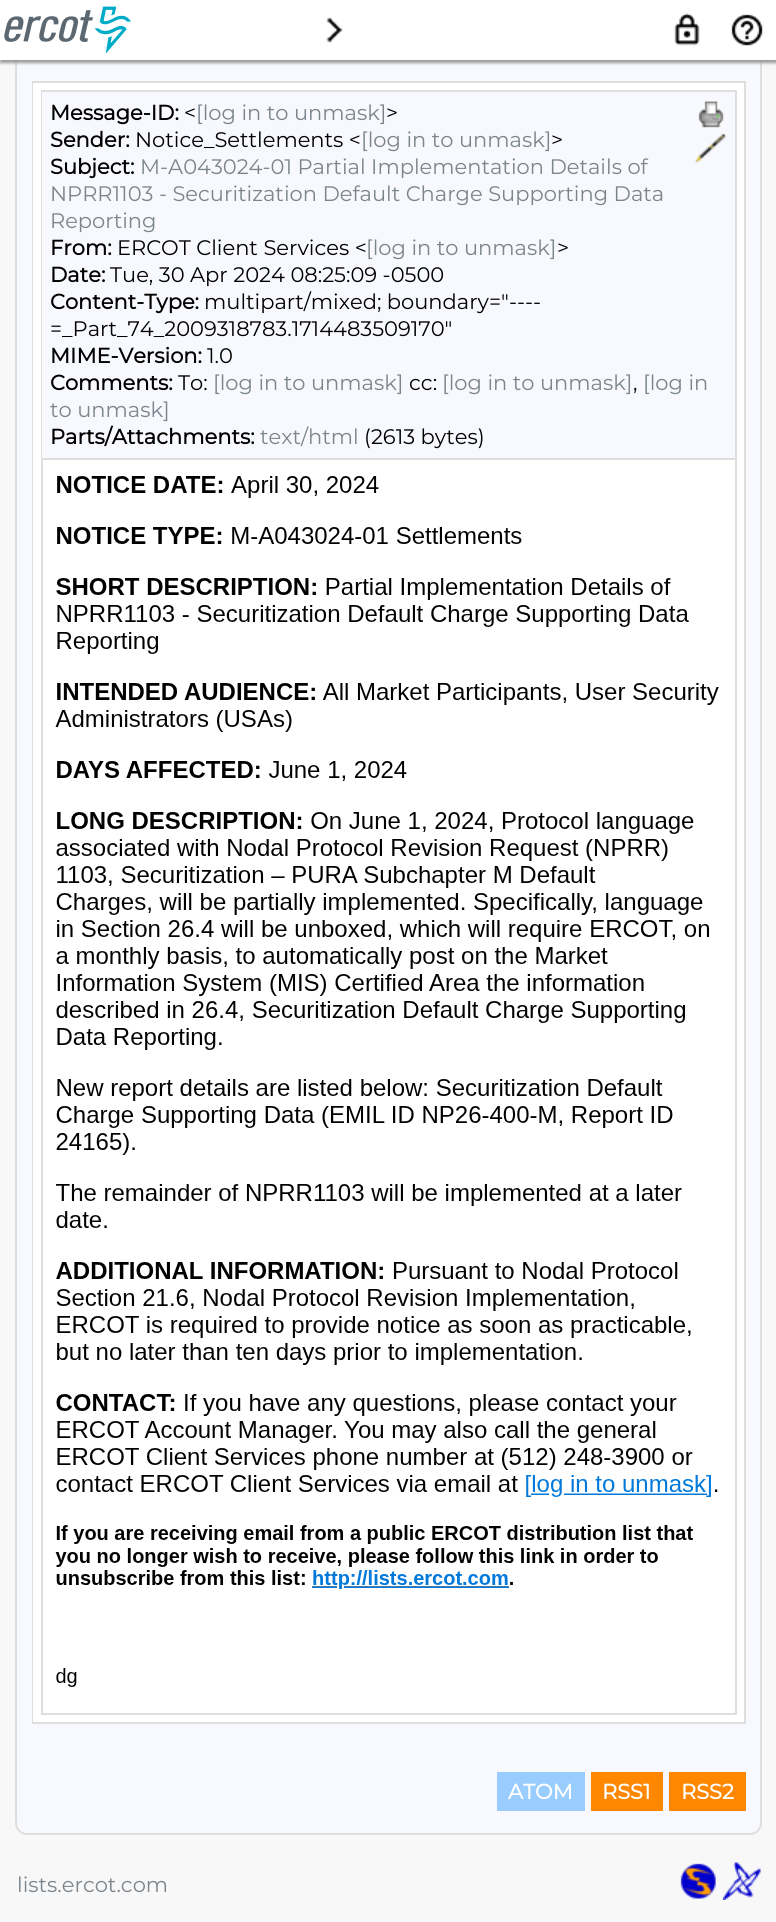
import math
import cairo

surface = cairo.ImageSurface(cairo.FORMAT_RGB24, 776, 1922)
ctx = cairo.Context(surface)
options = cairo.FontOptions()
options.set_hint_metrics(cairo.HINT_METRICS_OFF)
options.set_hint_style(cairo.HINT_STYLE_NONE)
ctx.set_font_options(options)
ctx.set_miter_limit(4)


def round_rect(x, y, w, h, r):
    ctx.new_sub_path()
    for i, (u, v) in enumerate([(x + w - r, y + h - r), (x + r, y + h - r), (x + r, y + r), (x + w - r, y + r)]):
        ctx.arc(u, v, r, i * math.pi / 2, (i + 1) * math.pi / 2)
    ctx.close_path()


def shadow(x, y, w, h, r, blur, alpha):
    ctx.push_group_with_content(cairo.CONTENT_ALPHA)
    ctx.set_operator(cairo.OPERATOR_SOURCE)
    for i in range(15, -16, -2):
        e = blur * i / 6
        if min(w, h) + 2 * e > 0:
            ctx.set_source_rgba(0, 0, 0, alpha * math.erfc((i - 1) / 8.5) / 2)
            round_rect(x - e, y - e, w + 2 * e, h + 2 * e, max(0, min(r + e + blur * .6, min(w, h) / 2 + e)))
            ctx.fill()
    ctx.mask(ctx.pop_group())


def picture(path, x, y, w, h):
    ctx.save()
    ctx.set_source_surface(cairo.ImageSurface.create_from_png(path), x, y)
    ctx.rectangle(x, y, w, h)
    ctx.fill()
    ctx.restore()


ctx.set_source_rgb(0.969, 0.969, 0.969)
ctx.paint()
ctx.set_source_rgb(0.969, 0.976, 0.996)
round_rect(16, -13, 745, 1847, 11)
ctx.fill_preserve()
ctx.set_source_rgb(0.871, 0.871, 0.871)
ctx.stroke()
ctx.set_source_rgb(0.6, 0.6, 0.6)
shadow(0, 3, 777, 60, 0, 1.5, 1)
ctx.set_source_rgb(1, 1, 1)
ctx.rectangle(0, 0, 776, 60)
ctx.fill()
picture("img1.png", 4, 6, 127, 48)
picture("img2.png", 326, 17, 17, 26)
picture("img3.png", 674, 13, 26, 33)
picture("img4.png", 731, 14, 32, 32)
ctx.rectangle(33, 82, 712, 1641)
ctx.set_source_rgb(0.871, 0.871, 0.871)
ctx.stroke()
ctx.set_source_rgb(1, 1, 1)
ctx.rectangle(33, 83, 711, 1639)
ctx.fill()
ctx.rectangle(42, 91, 694, 1623)
ctx.set_source_rgb(0.871, 0.871, 0.871)
ctx.stroke()
ctx.set_source_rgb(0.969, 0.976, 0.996)
ctx.rectangle(42, 92, 693, 366)
ctx.fill()
ctx.set_source_rgb(0.871, 0.871, 0.871)
ctx.rectangle(42, 458, 693, 2)
ctx.fill()
ctx.select_font_face("Montserrat", cairo.FONT_SLANT_NORMAL, cairo.FONT_WEIGHT_BOLD)
ctx.set_font_size(21)
ctx.set_source_rgb(0, 0, 0)
ctx.move_to(50, 120)
ctx.show_text("Message-ID:")
ctx.select_font_face("Montserrat Thin")
ctx.move_to(184, 120)
ctx.show_text("<")
ctx.set_source_rgb(0.486, 0.522, 0.553)
ctx.move_to(196, 120)
ctx.show_text("[log in to unmask]")
ctx.set_source_rgb(0, 0, 0)
ctx.move_to(386, 120)
ctx.show_text(">")
picture("img5.png", 698, 101, 26, 27)
picture("img6.png", 694, 133, 33, 31)
ctx.select_font_face("Montserrat", cairo.FONT_SLANT_NORMAL, cairo.FONT_WEIGHT_BOLD)
ctx.move_to(50, 147)
ctx.show_text("Sender:")
ctx.select_font_face("Montserrat Thin")
ctx.move_to(135, 147)
ctx.show_text("Notice_Settlements <")
ctx.set_source_rgb(0.486, 0.522, 0.553)
ctx.move_to(361, 147)
ctx.show_text("[log in to unmask]")
ctx.set_source_rgb(0, 0, 0)
ctx.move_to(551, 147)
ctx.show_text(">")
ctx.select_font_face("Montserrat", cairo.FONT_SLANT_NORMAL, cairo.FONT_WEIGHT_BOLD)
ctx.move_to(50, 174)
ctx.show_text("Subject:")
ctx.select_font_face("Montserrat Thin")
ctx.set_source_rgb(0.486, 0.522, 0.553)
ctx.move_to(140, 174)
ctx.show_text("M-A043024-01 Partial Implementation Details of")
ctx.move_to(50, 201)
ctx.show_text("NPRR1103 - Securitization Default Charge Supporting Data")
ctx.move_to(50, 228)
ctx.show_text("Reporting")
ctx.select_font_face("Montserrat", cairo.FONT_SLANT_NORMAL, cairo.FONT_WEIGHT_BOLD)
ctx.set_source_rgb(0, 0, 0)
ctx.move_to(50, 255)
ctx.show_text("From:")
ctx.select_font_face("Montserrat Thin")
ctx.move_to(117, 255)
ctx.show_text("ERCOT Client Services <")
ctx.set_source_rgb(0.486, 0.522, 0.553)
ctx.move_to(366, 255)
ctx.show_text("[log in to unmask]")
ctx.set_source_rgb(0, 0, 0)
ctx.move_to(557, 255)
ctx.show_text(">")
ctx.select_font_face("Montserrat", cairo.FONT_SLANT_NORMAL, cairo.FONT_WEIGHT_BOLD)
ctx.move_to(50, 282)
ctx.show_text("Date:")
ctx.select_font_face("Montserrat Thin")
ctx.move_to(110, 282)
ctx.show_text("Tue, 30 Apr 2024 08:25:09 -0500")
ctx.select_font_face("Montserrat", cairo.FONT_SLANT_NORMAL, cairo.FONT_WEIGHT_BOLD)
ctx.move_to(50, 309)
ctx.show_text("Content-Type:")
ctx.select_font_face("Montserrat Thin")
ctx.move_to(204, 309)
ctx.show_text("multipart/mixed; boundary=\"----")
ctx.move_to(50, 336)
ctx.show_text("=_Part_74_2009318783.1714483509170\"")
ctx.select_font_face("Montserrat", cairo.FONT_SLANT_NORMAL, cairo.FONT_WEIGHT_BOLD)
ctx.move_to(50, 363)
ctx.show_text("MIME-Version:")
ctx.select_font_face("Montserrat Thin")
ctx.move_to(207, 363)
ctx.show_text("1.0")
ctx.select_font_face("Montserrat", cairo.FONT_SLANT_NORMAL, cairo.FONT_WEIGHT_BOLD)
ctx.move_to(50, 390)
ctx.show_text("Comments:")
ctx.select_font_face("Montserrat Thin")
ctx.move_to(178, 390)
ctx.show_text("To:")
ctx.set_source_rgb(0.486, 0.522, 0.553)
ctx.move_to(213, 390)
ctx.show_text("[log in to unmask]")
ctx.set_source_rgb(0, 0, 0)
ctx.move_to(409, 390)
ctx.show_text("cc:")
ctx.set_source_rgb(0.486, 0.522, 0.553)
ctx.move_to(442, 390)
ctx.show_text("[log in to unmask]")
ctx.set_source_rgb(0, 0, 0)
ctx.move_to(633, 390)
ctx.show_text(",")
ctx.set_source_rgb(0.486, 0.522, 0.553)
ctx.move_to(643, 390)
ctx.show_text("[log in")
ctx.move_to(50, 417)
ctx.show_text("to unmask]")
ctx.select_font_face("Montserrat", cairo.FONT_SLANT_NORMAL, cairo.FONT_WEIGHT_BOLD)
ctx.set_source_rgb(0, 0, 0)
ctx.move_to(50, 444)
ctx.show_text("Parts/Attachments:")
ctx.select_font_face("Montserrat Thin")
ctx.set_source_rgb(0.486, 0.522, 0.553)
ctx.move_to(260, 444)
ctx.show_text("text/html")
ctx.set_source_rgb(0, 0, 0)
ctx.move_to(364, 444)
ctx.show_text("(2613 bytes)")
picture("img7.png", 55, 476, 664, 1211)
ctx.set_source_rgb(0.6, 0.8, 1)
ctx.rectangle(497, 1772, 88, 39)
ctx.fill()
ctx.select_font_face("Montserrat", cairo.FONT_SLANT_NORMAL, cairo.FONT_WEIGHT_BOLD)
ctx.set_source_rgb(1, 1, 1)
ctx.move_to(508, 1799)
ctx.show_text("ATOM")
ctx.set_source_rgb(1, 0.533, 0)
ctx.rectangle(591, 1772, 72, 39)
ctx.fill()
ctx.set_source_rgb(1, 1, 1)
ctx.move_to(602, 1799)
ctx.show_text("RSS1")
ctx.set_source_rgb(1, 0.533, 0)
ctx.rectangle(669, 1772, 77, 39)
ctx.fill()
ctx.set_source_rgb(1, 1, 1)
ctx.move_to(681, 1799)
ctx.show_text("RSS2")
ctx.select_font_face("Montserrat Thin")
ctx.set_source_rgb(0.486, 0.522, 0.553)
ctx.move_to(17, 1892)
ctx.show_text("lists.ercot.com")
picture("img8.png", 680, 1863, 36, 36)
picture("img9.png", 723, 1862, 38, 38)
surface.write_to_png("page.png")
